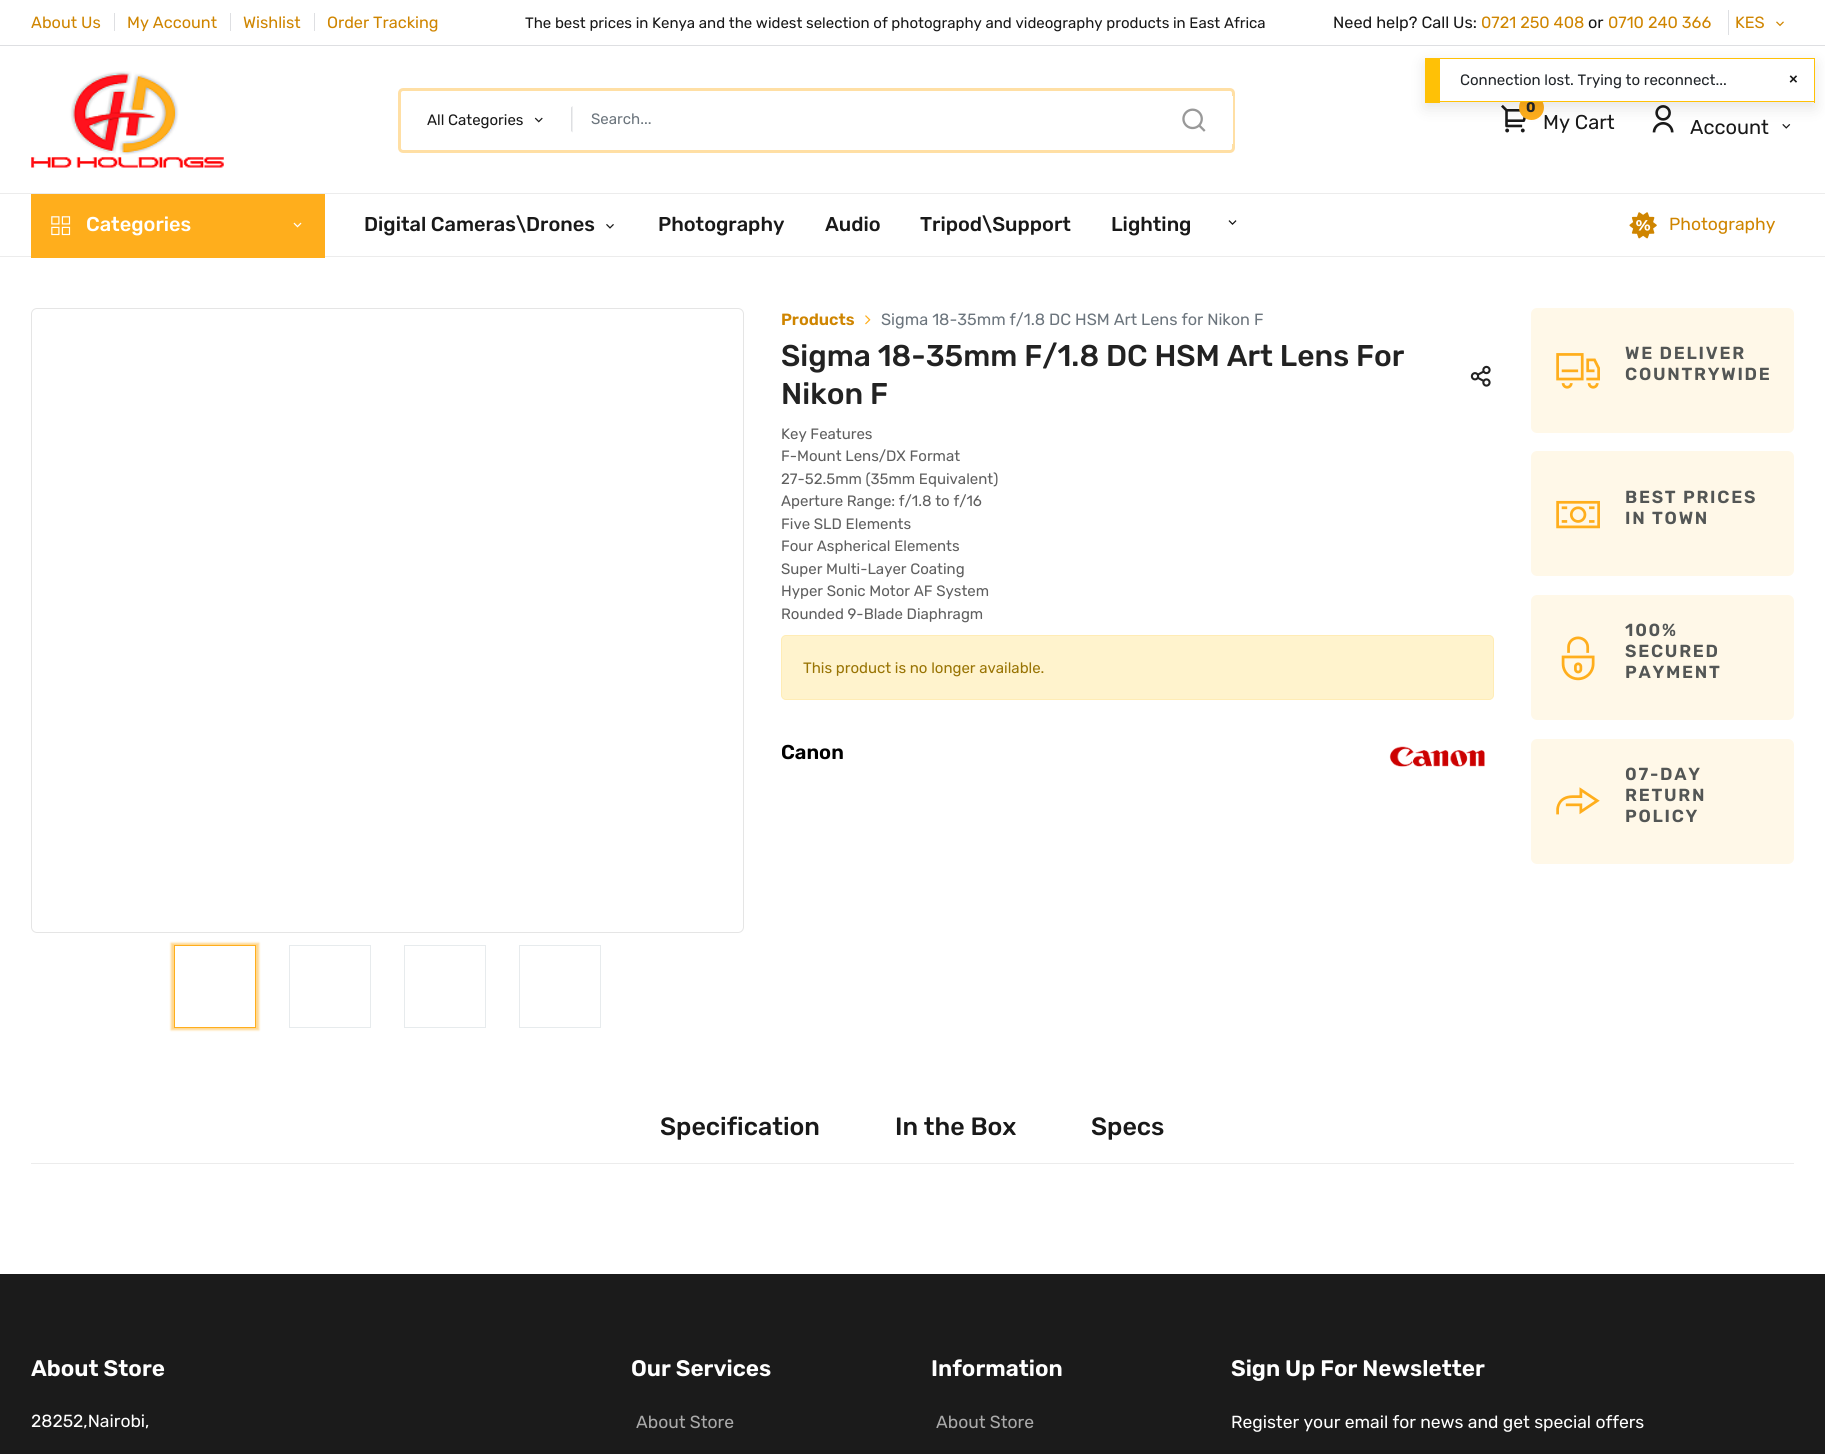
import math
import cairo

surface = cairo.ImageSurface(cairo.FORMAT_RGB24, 1825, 1454)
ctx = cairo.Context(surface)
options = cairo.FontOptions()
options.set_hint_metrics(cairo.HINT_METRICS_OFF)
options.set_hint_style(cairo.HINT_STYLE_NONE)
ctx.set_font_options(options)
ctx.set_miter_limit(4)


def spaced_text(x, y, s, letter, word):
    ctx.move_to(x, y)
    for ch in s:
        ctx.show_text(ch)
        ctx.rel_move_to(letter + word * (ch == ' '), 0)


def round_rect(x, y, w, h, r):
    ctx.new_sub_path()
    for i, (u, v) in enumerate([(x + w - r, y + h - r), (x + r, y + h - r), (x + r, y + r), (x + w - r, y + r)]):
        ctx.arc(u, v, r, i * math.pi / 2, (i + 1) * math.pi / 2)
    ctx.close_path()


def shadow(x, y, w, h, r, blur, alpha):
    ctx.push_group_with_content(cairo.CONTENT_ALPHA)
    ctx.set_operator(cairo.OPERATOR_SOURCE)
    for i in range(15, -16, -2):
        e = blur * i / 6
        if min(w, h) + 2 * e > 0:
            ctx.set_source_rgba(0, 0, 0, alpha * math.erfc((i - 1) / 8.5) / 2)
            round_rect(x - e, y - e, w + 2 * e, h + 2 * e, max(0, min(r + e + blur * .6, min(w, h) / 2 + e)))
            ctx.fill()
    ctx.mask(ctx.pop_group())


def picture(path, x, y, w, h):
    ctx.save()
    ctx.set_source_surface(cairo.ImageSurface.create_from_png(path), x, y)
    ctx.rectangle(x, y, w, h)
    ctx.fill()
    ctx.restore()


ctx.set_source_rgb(1, 1, 1)
ctx.paint()
ctx.set_source_rgb(0.871, 0.875, 0.886)
ctx.rectangle(0, 45, 1825, 1)
ctx.fill()
ctx.select_font_face("Rubik")
ctx.set_font_size(16.25)
ctx.set_source_rgb(0.812, 0.522, 0)
ctx.move_to(31, 28)
ctx.show_text("About Us")
ctx.set_source_rgb(0.871, 0.875, 0.886)
ctx.rectangle(114, 13, 1, 18)
ctx.fill()
ctx.set_source_rgb(0.812, 0.522, 0)
ctx.move_to(127, 28)
ctx.show_text("My Account")
ctx.set_source_rgb(0.871, 0.875, 0.886)
ctx.rectangle(230, 13, 1, 18)
ctx.fill()
ctx.set_source_rgb(0.812, 0.522, 0)
ctx.move_to(243, 28)
ctx.show_text("Wishlist")
ctx.set_source_rgb(0.871, 0.875, 0.886)
ctx.rectangle(314, 13, 1, 18)
ctx.fill()
ctx.set_source_rgb(0.812, 0.522, 0)
ctx.move_to(327, 28)
ctx.show_text("Order Tracking")
ctx.set_font_size(15)
ctx.set_source_rgb(0.098, 0.098, 0.098)
ctx.move_to(525, 28)
ctx.show_text("The best prices in Kenya and the widest selection of photography and videography products in East Africa")
ctx.set_font_size(16.25)
ctx.move_to(1333, 28)
ctx.show_text("Need help? Call Us:")
ctx.set_source_rgb(0.812, 0.522, 0)
ctx.move_to(1481, 28)
ctx.show_text("0721 250 408")
ctx.set_source_rgb(0.098, 0.098, 0.098)
ctx.move_to(1588, 28)
ctx.show_text("or")
ctx.set_source_rgb(0.812, 0.522, 0)
ctx.move_to(1608, 28)
ctx.show_text("0710 240 366")
ctx.set_source_rgb(0.871, 0.875, 0.886)
ctx.rectangle(1728, 10, 1, 25)
ctx.fill()
ctx.set_source_rgb(0.812, 0.522, 0)
ctx.move_to(1735, 28)
ctx.show_text("KES")
picture("img1.png", 1776, 21, 8, 6)
picture("img2.png", 31, 71, 193, 97)
round_rect(399.5, 89.5, 834, 62, 3.5)
ctx.set_source_rgb(1, 0.875, 0.643)
ctx.set_line_width(3)
ctx.stroke()
ctx.set_source_rgb(0.871, 0.875, 0.886)
ctx.new_path()
ctx.move_to(572.5, 106)
ctx.line_to(572.5, 132.5)
ctx.line_to(571, 131)
ctx.line_to(571, 107.5)
ctx.close_path()
ctx.fill()
ctx.set_font_size(15)
ctx.set_source_rgb(0.098, 0.098, 0.098)
ctx.move_to(427, 125)
ctx.show_text("All Categories")
picture("img3.png", 534, 117, 9, 6)
ctx.set_source_rgb(1, 1, 1)
ctx.rectangle(1232, 96, 1, 48)
ctx.fill()
ctx.set_source_rgb(0.424, 0.459, 0.49)
ctx.move_to(591, 124)
ctx.show_text("Search...")
picture("img4.png", 1182, 108, 24, 24)
picture("img5.png", 1501, 104, 25, 29)
ctx.set_source_rgb(1, 0.682, 0.11)
ctx.arc(1531.5, 107.5, 12.5, 0, 2 * math.pi)
ctx.fill()
ctx.select_font_face("Rubik", cairo.FONT_SLANT_NORMAL, cairo.FONT_WEIGHT_BOLD)
ctx.set_font_size(14)
ctx.set_source_rgb(0.129, 0.145, 0.161)
ctx.move_to(1526, 112)
ctx.show_text("0")
ctx.select_font_face("Rubik")
ctx.set_font_size(20)
ctx.set_source_rgb(0.098, 0.098, 0.098)
ctx.move_to(1543, 129)
ctx.show_text("My Cart")
picture("img6.png", 1652, 105, 22, 28)
ctx.move_to(1690, 134)
ctx.show_text("Account")
picture("img7.png", 1782, 124, 9, 5)
ctx.set_source_rgb(0.925, 0.925, 0.925)
ctx.rectangle(0, 193, 1825, 1)
ctx.fill()
ctx.rectangle(0, 256, 1825, 1)
ctx.fill()
ctx.set_source_rgb(1, 0.682, 0.11)
ctx.rectangle(31, 194, 294, 64)
ctx.fill()
picture("img8.png", 51, 216, 20, 20)
ctx.select_font_face("Rubik Medium")
ctx.set_source_rgb(1, 1, 1)
ctx.move_to(86, 231)
ctx.show_text("Categories")
picture("img9.png", 293, 222, 9, 6)
ctx.set_source_rgb(0.098, 0.098, 0.098)
ctx.move_to(364, 231)
ctx.show_text("Digital Cameras\\Drones")
picture("img10.png", 606, 224, 8, 5)
ctx.move_to(658, 231)
ctx.show_text("Photography")
ctx.move_to(825, 231)
ctx.show_text("Audio")
ctx.move_to(920, 231)
ctx.show_text("Tripod\\Support")
ctx.move_to(1111, 231)
ctx.show_text("Lighting")
picture("img11.png", 1228, 220, 9, 5)
picture("img12.png", 1629, 212, 28, 27)
ctx.select_font_face("Rubik")
ctx.set_font_size(17.5)
ctx.set_source_rgb(0.812, 0.522, 0)
ctx.move_to(1669, 230)
ctx.show_text("Photography")
round_rect(31.5, 308.5, 712, 624, 5.5)
ctx.set_source_rgb(0.898, 0.898, 0.898)
ctx.set_line_width(1)
ctx.stroke()
ctx.save()
ctx.set_fill_rule(cairo.FILL_RULE_EVEN_ODD)
ctx.new_path()
ctx.move_to(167, 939)
ctx.line_to(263, 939)
ctx.line_to(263, 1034)
ctx.line_to(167, 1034)
ctx.close_path()
ctx.move_to(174, 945)
ctx.line_to(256, 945)
ctx.line_to(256, 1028)
ctx.line_to(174, 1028)
ctx.close_path()
ctx.clip()
ctx.set_source_rgb(1, 0.682, 0.11)
shadow(171, 943, 88, 87, 0, 1, 0.5)
ctx.restore()
ctx.rectangle(174.5, 945.5, 81, 82)
ctx.set_source_rgb(1, 0.682, 0.11)
ctx.stroke()
ctx.rectangle(289.5, 945.5, 81, 82)
ctx.set_source_rgb(0.906, 0.918, 0.929)
ctx.stroke()
ctx.rectangle(404.5, 945.5, 81, 82)
ctx.stroke()
ctx.rectangle(519.5, 945.5, 81, 82)
ctx.stroke()
ctx.select_font_face("Rubik SemiBold")
ctx.set_font_size(16.25)
ctx.set_source_rgb(0.812, 0.522, 0)
ctx.move_to(781, 325)
ctx.show_text("Products")
picture("img13.png", 865, 315, 6, 10)
ctx.select_font_face("Rubik")
ctx.set_source_rgb(0.424, 0.459, 0.49)
ctx.move_to(881, 325)
ctx.show_text("Sigma 18-35mm f/1.8 DC HSM Art Lens for Nikon F")
ctx.select_font_face("Rubik Medium")
ctx.set_font_size(30)
ctx.set_source_rgb(0.133, 0.133, 0.133)
ctx.move_to(781, 366)
ctx.show_text("Sigma 18-35mm F/1.8 DC HSM Art Lens For")
ctx.move_to(781, 404)
ctx.show_text("Nikon F")
picture("img14.png", 1470, 365, 21, 22)
ctx.select_font_face("Rubik")
ctx.set_font_size(15)
ctx.set_source_rgb(0.373, 0.373, 0.373)
ctx.move_to(781, 439)
ctx.show_text("Key Features")
ctx.move_to(781, 461)
ctx.show_text("F-Mount Lens/DX Format")
ctx.move_to(781, 484)
ctx.show_text("27-52.5mm (35mm Equivalent)")
ctx.move_to(781, 506)
ctx.show_text("Aperture Range: f/1.8 to f/16")
ctx.move_to(781, 529)
ctx.show_text("Five SLD Elements")
ctx.move_to(781, 551)
ctx.show_text("Four Aspherical Elements")
ctx.move_to(781, 574)
ctx.show_text("Super Multi-Layer Coating")
ctx.move_to(781, 596)
ctx.show_text("Hyper Sonic Motor AF System")
ctx.move_to(781, 619)
ctx.show_text("Rounded 9-Blade Diaphragm")
ctx.set_source_rgb(1, 0.953, 0.804)
round_rect(781.5, 635.5, 712, 64, 4.5)
ctx.fill_preserve()
ctx.set_source_rgb(1, 0.925, 0.71)
ctx.stroke()
ctx.set_source_rgb(0.6, 0.455, 0.016)
ctx.move_to(803, 673)
ctx.show_text("This product is no longer available.")
ctx.select_font_face("Rubik SemiBold")
ctx.set_font_size(20)
ctx.set_source_rgb(0, 0, 0)
ctx.move_to(781, 759)
ctx.show_text("Canon")
picture("img15.png", 1389, 746, 96, 21)
ctx.set_source_rgb(1, 0.969, 0.91)
round_rect(1531, 308, 263, 125, 6)
ctx.fill()
picture("img16.png", 1556, 353, 44, 36)
ctx.set_font_size(17.5)
ctx.set_source_rgb(0.325, 0.337, 0.333)
spaced_text(1625, 359, "WE DELIVER", 1.75, 0)
spaced_text(1625, 380, "COUNTRYWIDE", 1.75, 0)
ctx.set_source_rgb(1, 0.969, 0.91)
round_rect(1531, 451, 263, 125, 6)
ctx.fill()
picture("img17.png", 1556, 500, 44, 29)
ctx.set_source_rgb(0.325, 0.337, 0.333)
spaced_text(1625, 503, "BEST PRICES", 1.75, 0)
spaced_text(1625, 524, "IN TOWN", 1.75, 0)
ctx.set_source_rgb(1, 0.969, 0.91)
round_rect(1531, 595, 263, 125, 6)
ctx.fill()
picture("img18.png", 1561, 636, 34, 45)
ctx.set_source_rgb(0.325, 0.337, 0.333)
spaced_text(1625, 636, "100%", 1.75, 0)
spaced_text(1625, 657, "SECURED", 1.75, 0)
spaced_text(1625, 678, "PAYMENT", 1.75, 0)
ctx.set_source_rgb(1, 0.969, 0.91)
round_rect(1531, 739, 263, 125, 6)
ctx.fill()
picture("img19.png", 1556, 787, 44, 28)
ctx.set_source_rgb(0.325, 0.337, 0.333)
spaced_text(1625, 780, "07-DAY", 1.75, 0)
spaced_text(1625, 801, "RETURN", 1.75, 0)
spaced_text(1625, 822, "POLICY", 1.75, 0)
ctx.set_source_rgb(0.922, 0.922, 0.922)
ctx.rectangle(31, 1163, 1763, 1)
ctx.fill()
ctx.select_font_face("Rubik Medium")
ctx.set_font_size(25)
ctx.set_source_rgb(0.098, 0.098, 0.098)
ctx.move_to(660, 1135)
ctx.show_text("Specification")
ctx.move_to(895, 1135)
ctx.show_text("In the Box")
ctx.move_to(1091, 1135)
ctx.show_text("Specs")
ctx.set_source_rgb(0.106, 0.106, 0.106)
ctx.rectangle(0, 1274, 1825, 180)
ctx.fill()
ctx.select_font_face("Rubik SemiBold")
ctx.set_font_size(22.5)
ctx.set_source_rgb(1, 1, 1)
ctx.move_to(31, 1376)
ctx.show_text("About Store")
ctx.select_font_face("Rubik")
ctx.set_font_size(17.5)
ctx.move_to(31, 1427)
ctx.show_text("28252,Nairobi,")
ctx.select_font_face("Rubik SemiBold")
ctx.set_font_size(22.5)
ctx.move_to(631, 1376)
ctx.show_text("Our Services")
ctx.select_font_face("Rubik")
ctx.set_font_size(17.5)
ctx.set_source_rgb(0.667, 0.667, 0.667)
ctx.move_to(636, 1428)
ctx.show_text("About Store")
ctx.select_font_face("Rubik SemiBold")
ctx.set_font_size(22.5)
ctx.set_source_rgb(1, 1, 1)
ctx.move_to(931, 1376)
ctx.show_text("Information")
ctx.select_font_face("Rubik")
ctx.set_font_size(17.5)
ctx.set_source_rgb(0.667, 0.667, 0.667)
ctx.move_to(936, 1428)
ctx.show_text("About Store")
ctx.select_font_face("Rubik SemiBold")
ctx.set_font_size(22.5)
ctx.set_source_rgb(1, 1, 1)
ctx.move_to(1231, 1376)
ctx.show_text("Sign Up For Newsletter")
ctx.select_font_face("Rubik")
ctx.set_font_size(17.5)
ctx.move_to(1231, 1428)
ctx.show_text("Register your email for news and get special offers")
ctx.set_source_rgb(0, 0, 0)
shadow(1425, 63, 390, 45, 0, 7.5, 0.1)
ctx.set_source_rgb(1, 1, 1)
ctx.rectangle(1440, 59, 374, 42)
ctx.fill()
ctx.set_source_rgb(1, 0.757, 0.027)
ctx.rectangle(1440, 58, 375, 1)
ctx.fill()
ctx.rectangle(1814, 58, 1, 45)
ctx.fill()
ctx.rectangle(1440, 101, 375, 1)
ctx.fill()
ctx.rectangle(1425, 58, 15, 45)
ctx.fill()
ctx.set_font_size(15)
ctx.set_source_rgb(0.129, 0.145, 0.161)
ctx.move_to(1460, 85)
ctx.show_text("Connection lost. Trying to reconnect...")
ctx.select_font_face("Liberation Sans", cairo.FONT_SLANT_NORMAL, cairo.FONT_WEIGHT_BOLD)
ctx.set_source_rgb(0.098, 0.098, 0.098)
ctx.move_to(1789, 84)
ctx.show_text("×")
surface.write_to_png("page.png")
